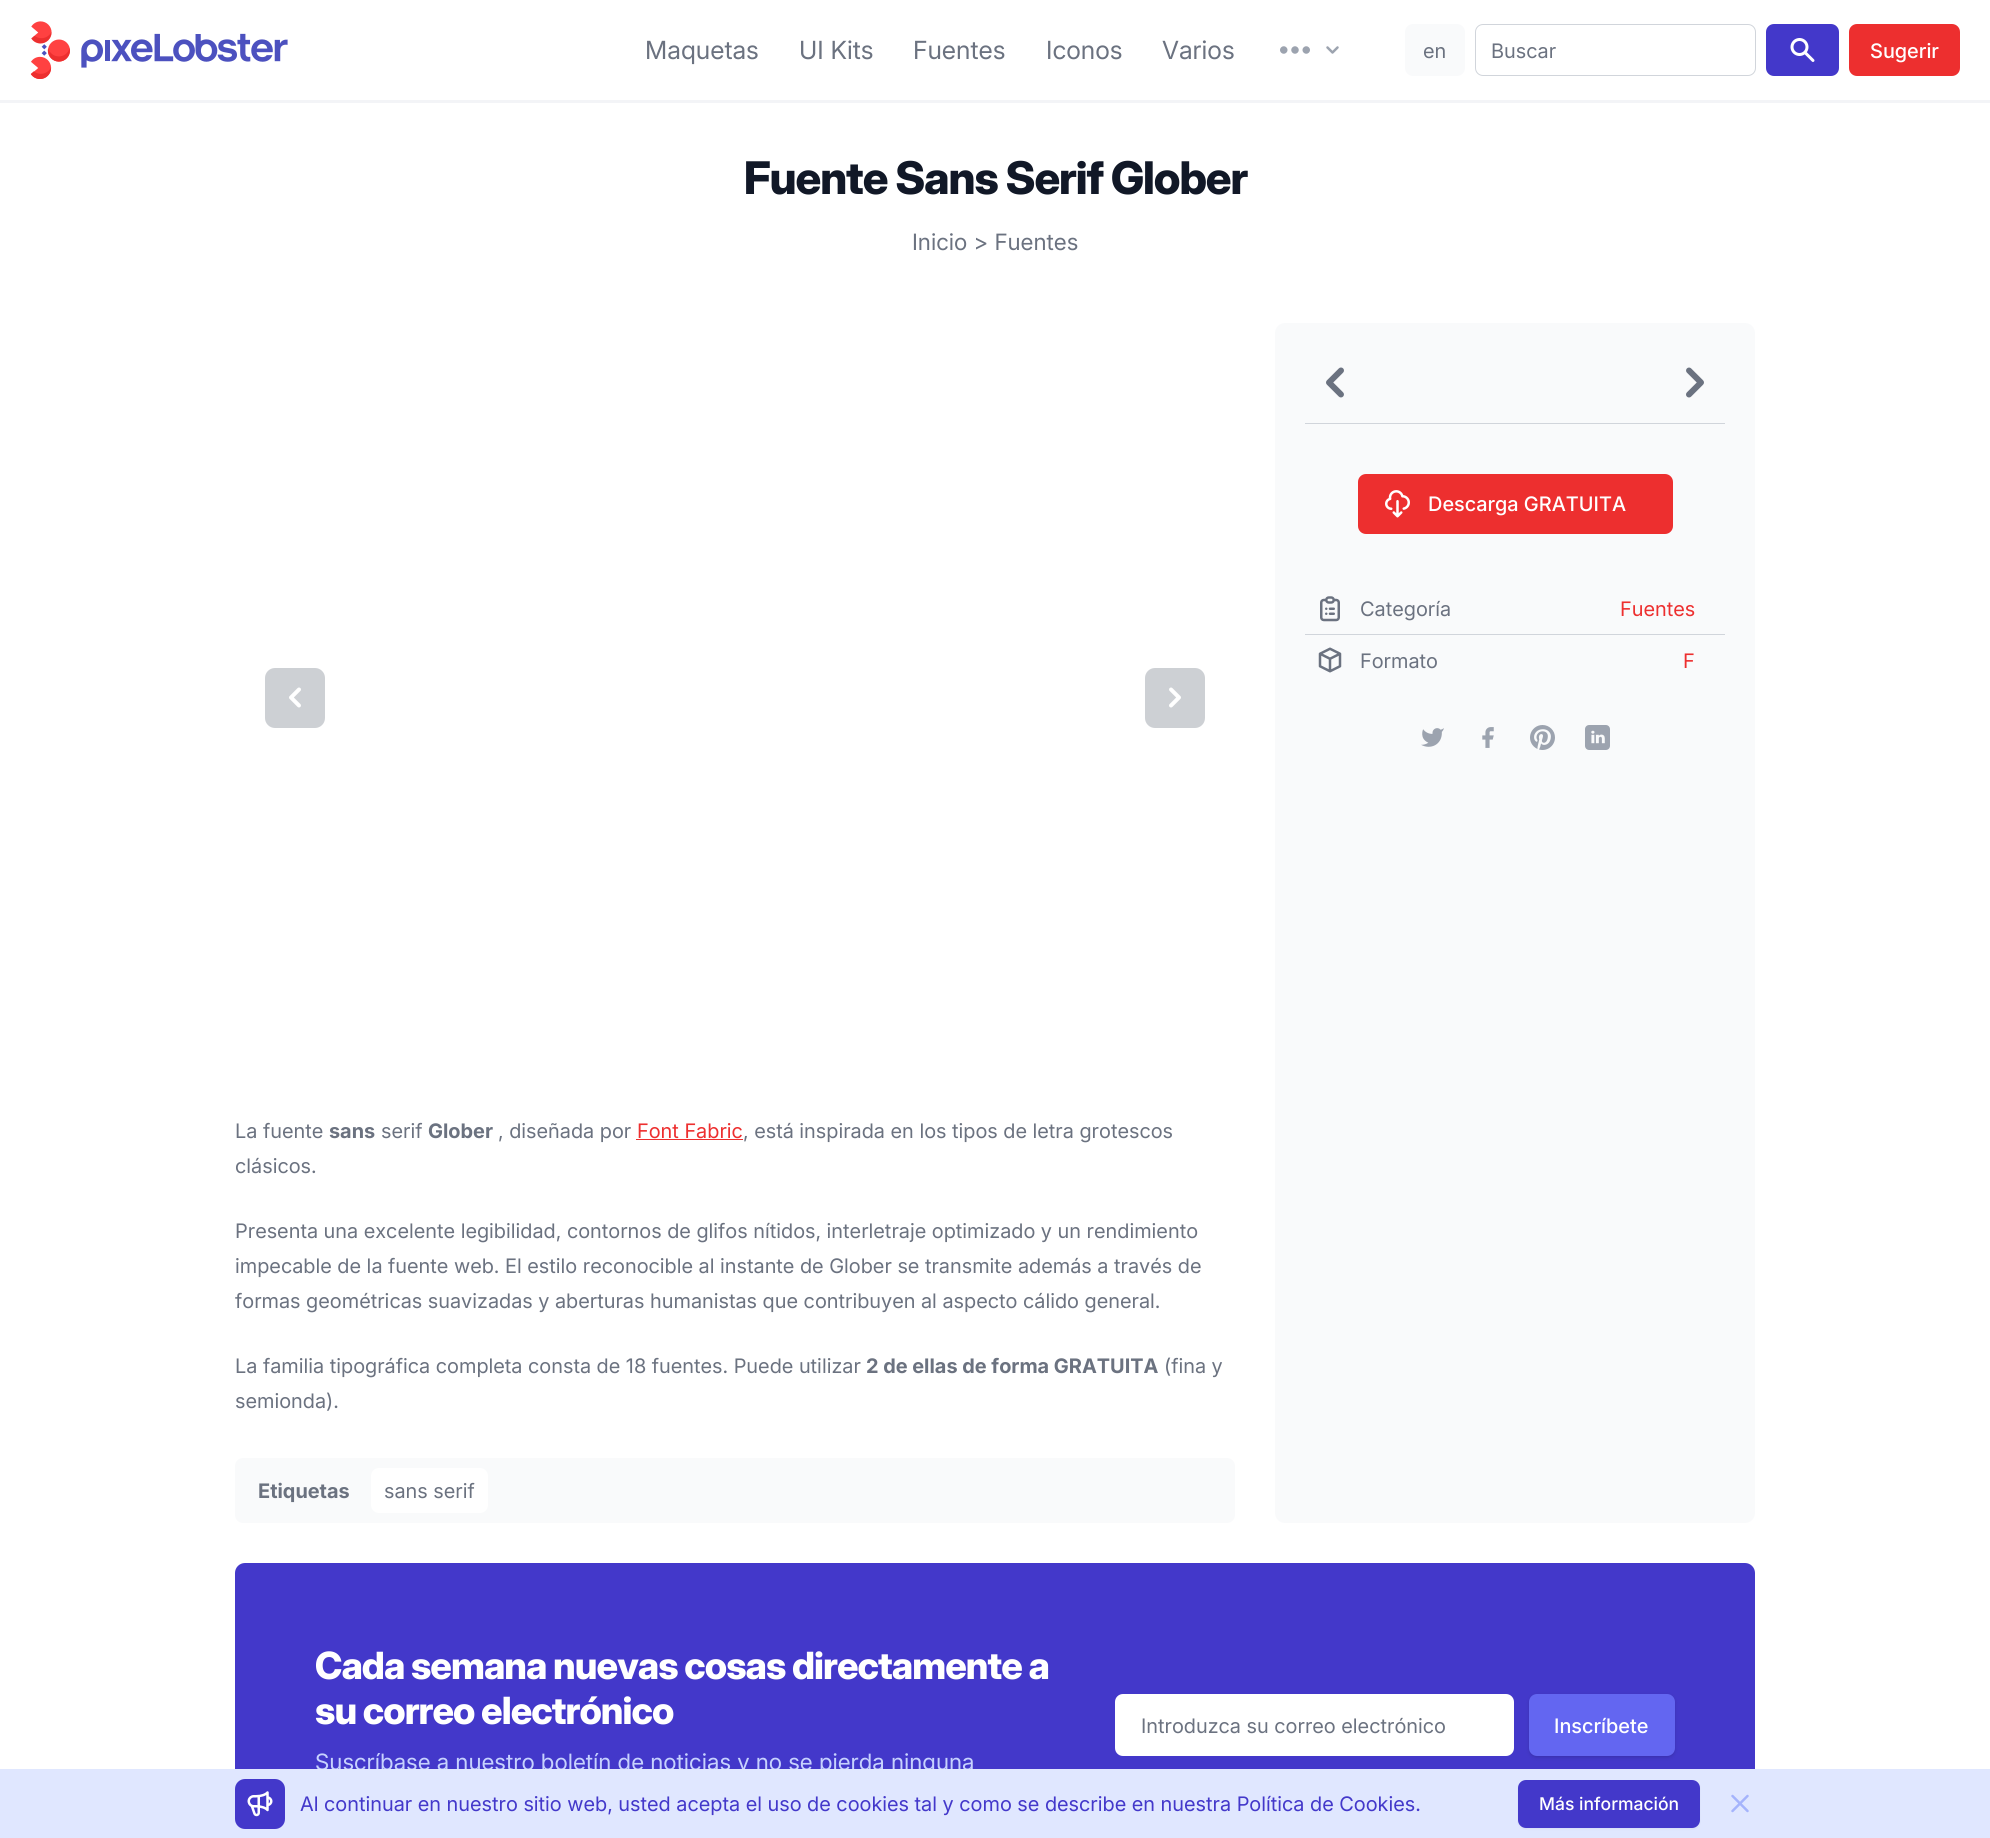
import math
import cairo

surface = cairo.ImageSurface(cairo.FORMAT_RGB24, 1990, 1838)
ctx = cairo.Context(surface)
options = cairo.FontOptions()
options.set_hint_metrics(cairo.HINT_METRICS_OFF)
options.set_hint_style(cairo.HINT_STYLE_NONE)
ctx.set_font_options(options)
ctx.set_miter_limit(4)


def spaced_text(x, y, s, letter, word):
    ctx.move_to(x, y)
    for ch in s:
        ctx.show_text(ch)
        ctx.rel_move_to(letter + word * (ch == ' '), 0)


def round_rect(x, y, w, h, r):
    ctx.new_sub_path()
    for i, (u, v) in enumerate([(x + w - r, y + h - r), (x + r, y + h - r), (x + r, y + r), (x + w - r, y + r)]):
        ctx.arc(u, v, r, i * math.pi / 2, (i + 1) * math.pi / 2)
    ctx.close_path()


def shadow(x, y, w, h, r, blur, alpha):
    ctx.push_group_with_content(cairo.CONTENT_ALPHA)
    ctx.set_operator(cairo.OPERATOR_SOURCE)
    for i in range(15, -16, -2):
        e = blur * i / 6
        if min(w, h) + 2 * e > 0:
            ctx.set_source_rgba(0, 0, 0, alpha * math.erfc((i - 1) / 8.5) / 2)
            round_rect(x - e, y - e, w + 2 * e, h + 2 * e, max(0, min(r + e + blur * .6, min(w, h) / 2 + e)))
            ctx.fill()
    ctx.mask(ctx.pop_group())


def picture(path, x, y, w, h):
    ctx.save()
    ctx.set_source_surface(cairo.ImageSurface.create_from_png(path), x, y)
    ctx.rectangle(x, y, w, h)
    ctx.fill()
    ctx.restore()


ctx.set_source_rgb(1, 1, 1)
ctx.paint()
ctx.set_source_rgb(0.953, 0.957, 0.965)
ctx.rectangle(0, 100, 1990, 3)
ctx.fill()
picture("img1.png", 30, 21, 40, 58)
picture("img2.png", 81, 33, 207, 35)
ctx.select_font_face("Inter")
ctx.set_font_size(25)
ctx.set_source_rgb(0.42, 0.447, 0.502)
ctx.move_to(645, 59)
ctx.show_text("Maquetas")
ctx.move_to(799, 59)
ctx.show_text("UI Kits")
ctx.move_to(913, 59)
ctx.show_text("Fuentes")
ctx.move_to(1046, 59)
ctx.show_text("Iconos")
ctx.move_to(1162, 59)
ctx.show_text("Varios")
picture("img3.png", 1280, 46, 30, 8)
picture("img4.png", 1326, 46, 13, 8)
ctx.set_source_rgb(0.976, 0.98, 0.984)
round_rect(1405, 24, 60, 52, 8)
ctx.fill()
ctx.select_font_face("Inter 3")
ctx.set_font_size(20)
ctx.set_source_rgb(0.42, 0.447, 0.502)
ctx.move_to(1423, 58)
ctx.show_text("en")
round_rect(1475.5, 24.5, 280, 51, 7.5)
ctx.set_source_rgb(0.82, 0.835, 0.859)
ctx.set_line_width(1)
ctx.stroke()
ctx.set_source_rgb(0.42, 0.447, 0.502)
ctx.move_to(1491, 58)
ctx.show_text("Buscar")
ctx.set_source_rgb(0.263, 0.22, 0.792)
round_rect(1766, 24, 73, 52, 8)
ctx.fill()
picture("img5.png", 1790, 38, 25, 24)
ctx.set_source_rgb(0.929, 0.184, 0.184)
round_rect(1849, 24, 111, 52, 8)
ctx.fill()
ctx.select_font_face("Inter Medium")
ctx.set_source_rgb(1, 1, 1)
ctx.move_to(1870, 58)
ctx.show_text("Sugerir")
ctx.select_font_face("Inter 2 ExtraBold")
ctx.set_font_size(45)
ctx.set_source_rgb(0.067, 0.094, 0.153)
spaced_text(744, 194, "Fuente Sans Serif Glober", -1.1, 0)
ctx.select_font_face("Inter 2")
ctx.set_font_size(22.5)
ctx.set_source_rgb(0.42, 0.447, 0.502)
ctx.move_to(912, 250)
ctx.show_text("Inicio > Fuentes")
ctx.set_source_rgb(0.976, 0.98, 0.984)
round_rect(1275, 323, 480, 1200, 10)
ctx.fill()
ctx.set_source_rgb(0.82, 0.835, 0.859)
ctx.rectangle(1305, 423, 420, 1)
ctx.fill()
picture("img6.png", 1326, 367, 18, 31)
picture("img7.png", 1686, 367, 18, 31)
ctx.set_source_rgb(0.929, 0.184, 0.184)
round_rect(1358, 474, 315, 60, 8)
ctx.fill()
picture("img8.png", 1385, 490, 25, 28)
ctx.select_font_face("Inter Medium")
ctx.set_font_size(20)
ctx.set_source_rgb(1, 1, 1)
ctx.move_to(1428, 511)
ctx.show_text("Descarga GRATUITA")
picture("img9.png", 1320, 596, 20, 26)
ctx.select_font_face("Inter 3")
ctx.set_source_rgb(0.42, 0.447, 0.502)
ctx.move_to(1360, 616)
ctx.show_text("Categoría")
ctx.set_source_rgb(0.929, 0.184, 0.184)
ctx.move_to(1620, 616)
ctx.show_text("Fuentes")
ctx.set_source_rgb(0.82, 0.835, 0.859)
ctx.rectangle(1305, 634, 420, 1)
ctx.fill()
picture("img10.png", 1318, 647, 24, 26)
ctx.set_source_rgb(0.42, 0.447, 0.502)
ctx.move_to(1360, 668)
ctx.show_text("Formato")
ctx.set_source_rgb(0.929, 0.184, 0.184)
ctx.move_to(1683, 668)
ctx.show_text("F")
picture("img11.png", 1421, 728, 23, 19)
picture("img12.png", 1482, 727, 12, 21)
picture("img13.png", 1530, 725, 25, 25)
picture("img14.png", 1585, 725, 25, 25)
ctx.set_source_rgb(0.804, 0.816, 0.831)
round_rect(265, 668, 60, 60, 10)
ctx.fill()
picture("img15.png", 289, 687, 12, 21)
round_rect(1145, 668, 60, 60, 10)
ctx.fill()
picture("img16.png", 1169, 687, 12, 21)
ctx.set_source_rgb(0.42, 0.447, 0.502)
ctx.move_to(235, 1138)
ctx.show_text("La fuente")
ctx.select_font_face("Inter", cairo.FONT_SLANT_NORMAL, cairo.FONT_WEIGHT_BOLD)
ctx.move_to(329, 1138)
ctx.show_text("sans")
ctx.select_font_face("Inter 3")
ctx.move_to(381, 1138)
ctx.show_text("serif")
ctx.select_font_face("Inter", cairo.FONT_SLANT_NORMAL, cairo.FONT_WEIGHT_BOLD)
ctx.move_to(428, 1138)
ctx.show_text("Glober")
ctx.select_font_face("Inter 3")
ctx.move_to(498, 1138)
ctx.show_text(", diseñada por")
ctx.set_source_rgb(0.929, 0.184, 0.184)
ctx.move_to(637, 1138)
ctx.show_text("Font Fabric")
ctx.rectangle(636, 1139, 107, 1)
ctx.fill()
ctx.set_source_rgb(0.42, 0.447, 0.502)
ctx.move_to(743, 1138)
ctx.show_text(", está inspirada en los tipos de letra grotescos")
ctx.move_to(235, 1173)
ctx.show_text("clásicos.")
ctx.move_to(235, 1238)
ctx.show_text("Presenta una excelente legibilidad, contornos de glifos nítidos, interletraje optimizado y un rendimiento")
ctx.move_to(235, 1273)
ctx.show_text("impecable de la fuente web. El estilo reconocible al instante de Glober se transmite además a través de")
ctx.move_to(235, 1308)
ctx.show_text("formas geométricas suavizadas y aberturas humanistas que contribuyen al aspecto cálido general.")
ctx.move_to(235, 1373)
ctx.show_text("La familia tipográfica completa consta de 18 fuentes. Puede utilizar")
ctx.select_font_face("Inter", cairo.FONT_SLANT_NORMAL, cairo.FONT_WEIGHT_BOLD)
ctx.move_to(866, 1373)
ctx.show_text("2 de ellas de forma GRATUITA")
ctx.select_font_face("Inter 3")
ctx.move_to(1164, 1373)
ctx.show_text("(fina y")
ctx.move_to(235, 1408)
ctx.show_text("semionda).")
ctx.set_source_rgb(0.976, 0.98, 0.984)
round_rect(235, 1458, 1000, 65, 8)
ctx.fill()
ctx.select_font_face("Inter", cairo.FONT_SLANT_NORMAL, cairo.FONT_WEIGHT_BOLD)
ctx.set_source_rgb(0.42, 0.447, 0.502)
ctx.move_to(258, 1498)
ctx.show_text("Etiquetas")
ctx.set_source_rgb(1, 1, 1)
round_rect(371, 1468, 117, 45, 8)
ctx.fill()
ctx.select_font_face("Inter 3")
ctx.set_source_rgb(0.42, 0.447, 0.502)
ctx.move_to(384, 1498)
ctx.show_text("sans serif")
ctx.set_source_rgb(0.263, 0.22, 0.792)
round_rect(235, 1563, 1520, 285, 10)
ctx.fill()
ctx.select_font_face("Inter ExtraBold")
ctx.set_font_size(37.5)
ctx.set_source_rgb(1, 1, 1)
spaced_text(315, 1679, "Cada semana nuevas cosas directamente a", -0.95, 0)
spaced_text(315, 1724, "su correo electrónico", -0.95, 0)
ctx.select_font_face("Inter 2")
ctx.set_font_size(22.5)
ctx.set_source_rgb(0.78, 0.824, 0.996)
ctx.move_to(315, 1770)
ctx.show_text("Suscríbase a nuestro boletín de noticias y no se pierda ninguna")
ctx.set_source_rgb(1, 1, 1)
round_rect(1115, 1694, 399, 62, 8)
ctx.fill()
ctx.select_font_face("Inter 3")
ctx.set_font_size(20)
ctx.set_source_rgb(0.42, 0.447, 0.502)
ctx.move_to(1141, 1733)
ctx.show_text("Introduzca su correo electrónico")
ctx.set_source_rgb(0, 0, 0)
shadow(1530, 1696, 144, 60, 6, 1, 0.1)
shadow(1529, 1695, 146, 63, 8, 2, 0.1)
ctx.set_source_rgb(0.388, 0.4, 0.945)
round_rect(1529, 1694, 146, 62, 8)
ctx.fill()
ctx.select_font_face("Inter Medium")
ctx.set_source_rgb(1, 1, 1)
ctx.move_to(1554, 1733)
ctx.show_text("Inscríbete")
ctx.set_source_rgb(0.878, 0.906, 1)
ctx.rectangle(0, 1769, 1990, 69)
ctx.fill()
ctx.set_source_rgb(0.263, 0.22, 0.792)
round_rect(235, 1779, 50, 50, 10)
ctx.fill()
picture("img17.png", 247, 1791, 26, 26)
ctx.select_font_face("Inter 3")
ctx.move_to(300, 1811)
ctx.show_text("Al continuar en nuestro sitio web, usted acepta el uso de cookies tal y como se describe en nuestra Política de Cookies.")
ctx.set_source_rgb(0, 0, 0)
shadow(1518, 1781, 182, 48, 8, 1, 0.05)
ctx.set_source_rgb(0.263, 0.22, 0.792)
round_rect(1518, 1780, 182, 48, 8)
ctx.fill()
ctx.select_font_face("Inter 2 Medium")
ctx.set_font_size(17.5)
ctx.set_source_rgb(1, 1, 1)
ctx.move_to(1539, 1810)
ctx.show_text("Más información")
ctx.new_path()
ctx.move_to(1732.5, 1811)
ctx.line_to(1747.5, 1796)
ctx.move_to(1732.5, 1796)
ctx.line_to(1747.5, 1811)
ctx.set_source_rgb(0.647, 0.706, 0.988)
ctx.set_line_width(2.5)
ctx.set_line_cap(cairo.LINE_CAP_ROUND)
ctx.set_line_join(cairo.LINE_JOIN_ROUND)
ctx.stroke()
surface.write_to_png("page.png")
